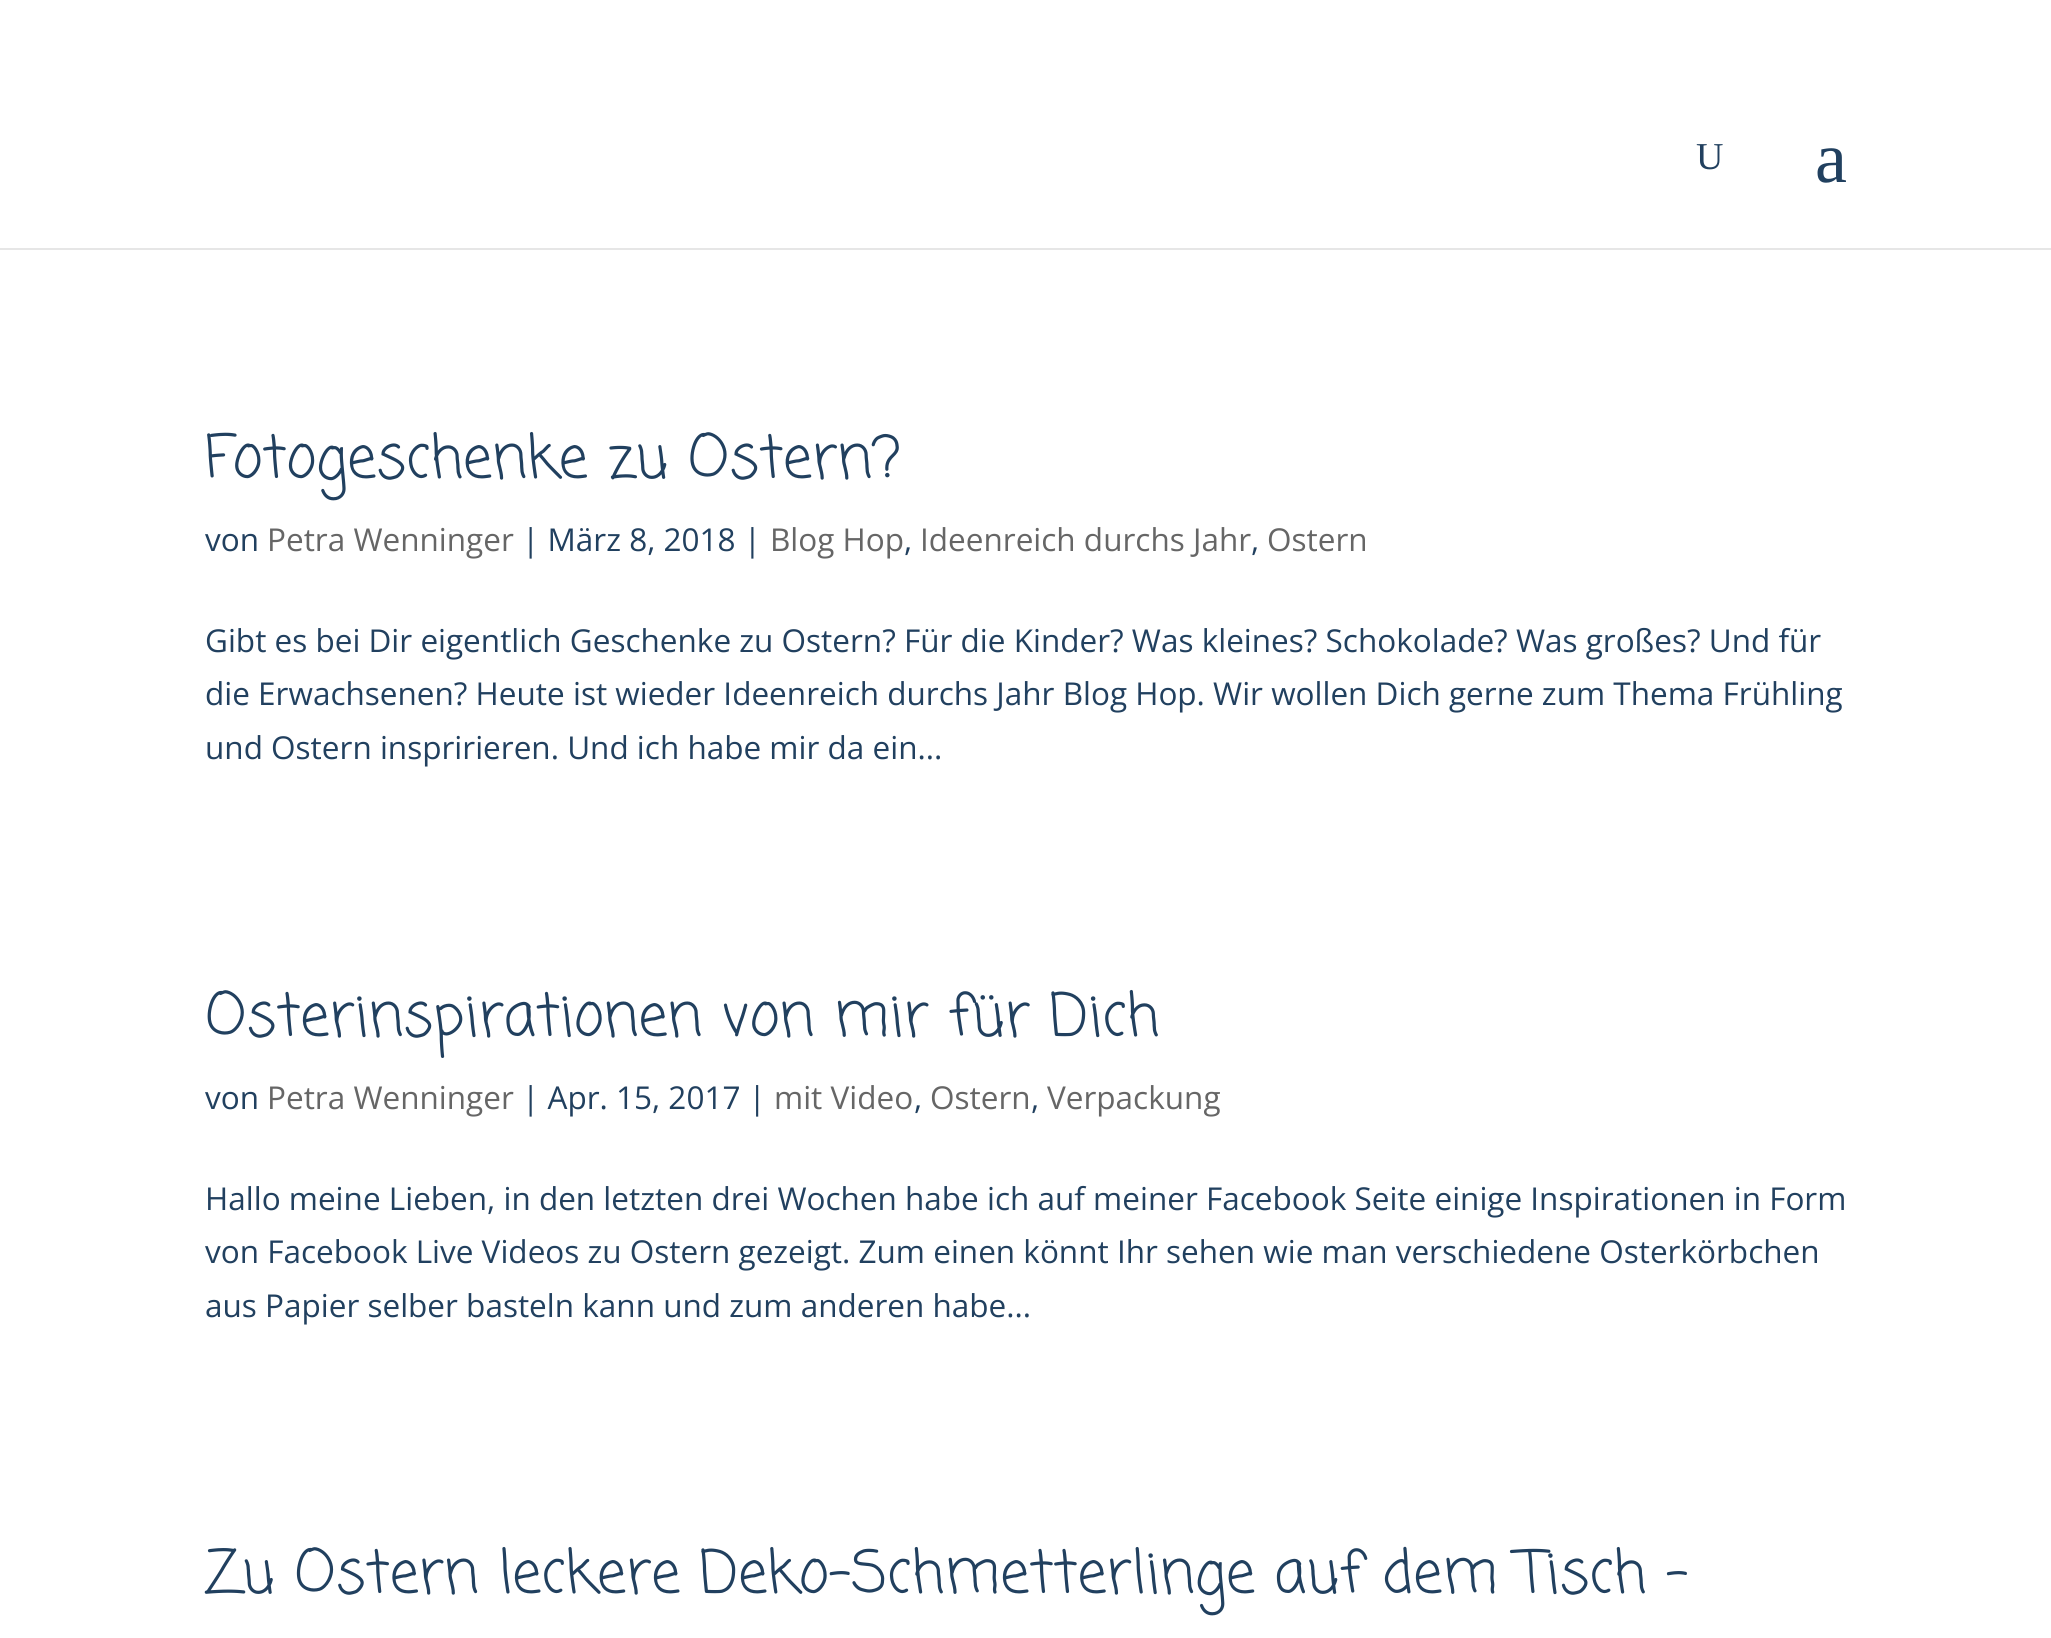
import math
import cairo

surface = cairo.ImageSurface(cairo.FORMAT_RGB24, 2051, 1638)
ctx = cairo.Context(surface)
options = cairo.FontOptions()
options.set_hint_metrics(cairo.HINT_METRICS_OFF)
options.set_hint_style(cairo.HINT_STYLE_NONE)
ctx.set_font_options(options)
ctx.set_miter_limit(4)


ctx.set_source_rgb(1, 1, 1)
ctx.paint()
ctx.set_source_rgb(0.902, 0.902, 0.902)
ctx.rectangle(0, 248, 2051, 2)
ctx.fill()
ctx.select_font_face("Liberation Serif")
ctx.set_font_size(38)
ctx.set_source_rgb(0.129, 0.251, 0.373)
ctx.move_to(1696, 169)
ctx.show_text("U")
ctx.set_font_size(72)
ctx.move_to(1815, 182)
ctx.show_text("a")
ctx.select_font_face("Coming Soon")
ctx.set_font_size(58.5)
ctx.move_to(205, 477)
ctx.show_text("Fotogeschenke zu Ostern?")
ctx.select_font_face("Open Sans")
ctx.set_font_size(31.5)
ctx.move_to(205, 551)
ctx.show_text("von")
ctx.set_source_rgb(0.4, 0.4, 0.4)
ctx.move_to(267, 551)
ctx.show_text("Petra Wenninger")
ctx.set_source_rgb(0.129, 0.251, 0.373)
ctx.move_to(522, 551)
ctx.show_text("| März 8, 2018 |")
ctx.set_source_rgb(0.4, 0.4, 0.4)
ctx.move_to(770, 551)
ctx.show_text("Blog Hop")
ctx.set_source_rgb(0.129, 0.251, 0.373)
ctx.move_to(904, 551)
ctx.show_text(",")
ctx.set_source_rgb(0.4, 0.4, 0.4)
ctx.move_to(920, 551)
ctx.show_text("Ideenreich durchs Jahr")
ctx.set_source_rgb(0.129, 0.251, 0.373)
ctx.move_to(1251, 551)
ctx.show_text(",")
ctx.set_source_rgb(0.4, 0.4, 0.4)
ctx.move_to(1267, 551)
ctx.show_text("Ostern")
ctx.set_source_rgb(0.129, 0.251, 0.373)
ctx.move_to(205, 652)
ctx.show_text("Gibt es bei Dir eigentlich Geschenke zu Ostern? Für die Kinder? Was kleines? Schokolade? Was großes? Und für")
ctx.move_to(205, 705)
ctx.show_text("die Erwachsenen? Heute ist wieder Ideenreich durchs Jahr Blog Hop. Wir wollen Dich gerne zum Thema Frühling")
ctx.move_to(205, 759)
ctx.show_text("und Ostern inspririeren. Und ich habe mir da ein...")
ctx.select_font_face("Coming Soon")
ctx.set_font_size(58.5)
ctx.move_to(205, 1035)
ctx.show_text("Osterinspirationen von mir für Dich")
ctx.select_font_face("Open Sans")
ctx.set_font_size(31.5)
ctx.move_to(205, 1109)
ctx.show_text("von")
ctx.set_source_rgb(0.4, 0.4, 0.4)
ctx.move_to(267, 1109)
ctx.show_text("Petra Wenninger")
ctx.set_source_rgb(0.129, 0.251, 0.373)
ctx.move_to(522, 1109)
ctx.show_text("| Apr. 15, 2017 |")
ctx.set_source_rgb(0.4, 0.4, 0.4)
ctx.move_to(774, 1109)
ctx.show_text("mit Video")
ctx.set_source_rgb(0.129, 0.251, 0.373)
ctx.move_to(914, 1109)
ctx.show_text(",")
ctx.set_source_rgb(0.4, 0.4, 0.4)
ctx.move_to(930, 1109)
ctx.show_text("Ostern")
ctx.set_source_rgb(0.129, 0.251, 0.373)
ctx.move_to(1031, 1109)
ctx.show_text(",")
ctx.set_source_rgb(0.4, 0.4, 0.4)
ctx.move_to(1047, 1109)
ctx.show_text("Verpackung")
ctx.set_source_rgb(0.129, 0.251, 0.373)
ctx.move_to(205, 1210)
ctx.show_text("Hallo meine Lieben, in den letzten drei Wochen habe ich auf meiner Facebook Seite einige Inspirationen in Form")
ctx.move_to(205, 1263)
ctx.show_text("von Facebook Live Videos zu Ostern gezeigt. Zum einen könnt Ihr sehen wie man verschiedene Osterkörbchen")
ctx.move_to(205, 1317)
ctx.show_text("aus Papier selber basteln kann und zum anderen habe...")
ctx.select_font_face("Coming Soon")
ctx.set_font_size(58.5)
ctx.move_to(205, 1592)
ctx.show_text("Zu Ostern leckere Deko-Schmetterlinge auf dem Tisch –")
surface.write_to_png("page.png")
